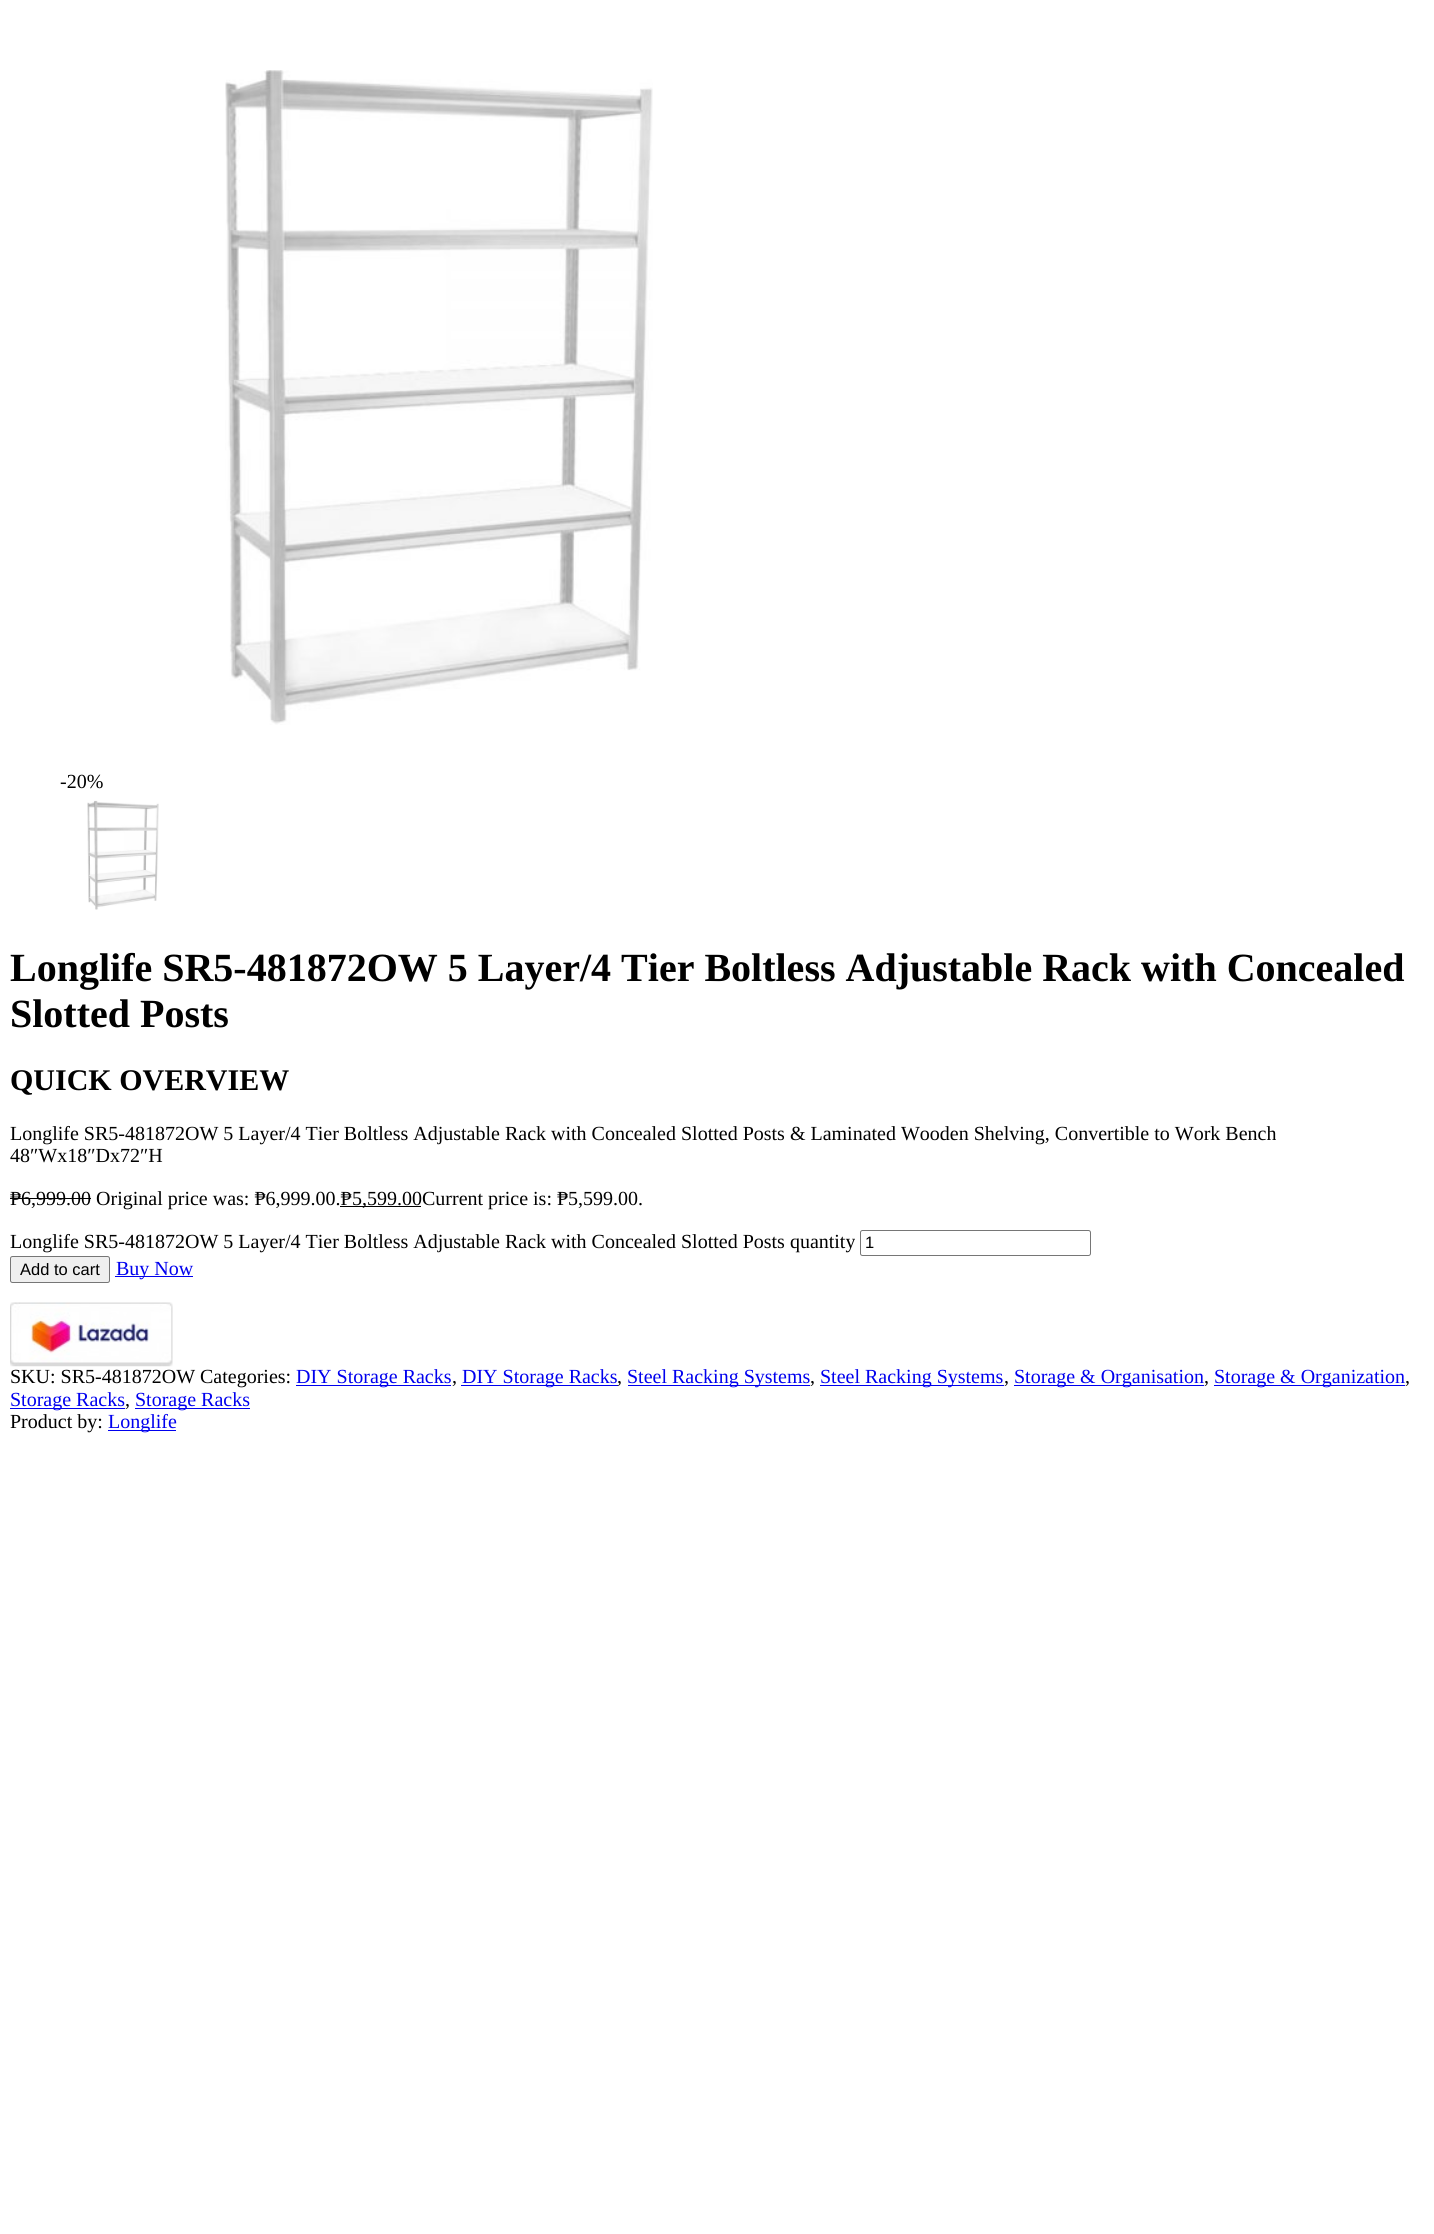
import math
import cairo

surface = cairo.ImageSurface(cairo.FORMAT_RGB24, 1434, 2234)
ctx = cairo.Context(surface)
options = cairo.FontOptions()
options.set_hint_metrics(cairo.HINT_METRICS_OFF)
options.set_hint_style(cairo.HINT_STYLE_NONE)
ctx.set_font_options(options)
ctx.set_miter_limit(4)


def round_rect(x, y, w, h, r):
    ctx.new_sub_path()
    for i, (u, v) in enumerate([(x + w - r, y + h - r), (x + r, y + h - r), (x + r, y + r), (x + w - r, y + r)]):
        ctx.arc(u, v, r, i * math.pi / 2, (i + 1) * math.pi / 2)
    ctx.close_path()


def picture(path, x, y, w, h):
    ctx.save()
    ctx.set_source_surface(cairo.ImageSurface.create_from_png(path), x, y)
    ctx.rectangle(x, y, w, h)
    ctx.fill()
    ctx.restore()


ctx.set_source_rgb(1, 1, 1)
ctx.paint()
picture("img1.png", 225, 70, 428, 655)
ctx.select_font_face("Liberation Serif")
ctx.set_font_size(20)
ctx.set_source_rgb(0, 0, 0)
ctx.move_to(60, 788)
ctx.show_text("-20%")
picture("img2.png", 87, 800, 72, 110)
ctx.select_font_face("Liberation Serif", cairo.FONT_SLANT_NORMAL, cairo.FONT_WEIGHT_BOLD)
ctx.set_font_size(40)
ctx.move_to(10, 981)
ctx.show_text("Longlife SR5-481872OW 5 Layer/4 Tier Boltless Adjustable Rack with Concealed")
ctx.move_to(10, 1027)
ctx.show_text("Slotted Posts")
ctx.set_font_size(30)
ctx.move_to(10, 1090)
ctx.show_text("QUICK OVERVIEW")
ctx.select_font_face("Liberation Serif")
ctx.set_font_size(20)
ctx.move_to(10, 1140)
ctx.show_text("Longlife SR5-481872OW 5 Layer/4 Tier Boltless Adjustable Rack with Concealed Slotted Posts & Laminated Wooden Shelving, Convertible to Work Bench")
ctx.move_to(10, 1162)
ctx.show_text("48″Wx18″Dx72″H")
ctx.move_to(10, 1205)
ctx.show_text("₱6,999.00 Original price was: ₱6,999.00.₱")
ctx.rectangle(10, 1198, 81, 1)
ctx.fill()
ctx.rectangle(340, 1206, 81, 1)
ctx.fill()
ctx.move_to(352, 1205)
ctx.show_text("5,599.00Current price is: ₱5,599.00.")
ctx.move_to(10, 1248)
ctx.show_text("Longlife SR5-481872OW 5 Layer/4 Tier Boltless Adjustable Rack with Concealed Slotted Posts quantity")
round_rect(860.5, 1230.5, 230, 25, 2)
ctx.set_source_rgb(0.463, 0.463, 0.463)
ctx.set_line_width(1)
ctx.stroke()
ctx.select_font_face("Liberation Sans")
ctx.set_font_size(16.5)
ctx.set_source_rgb(0, 0, 0)
ctx.move_to(865, 1248)
ctx.show_text("1")
ctx.set_source_rgb(0.937, 0.937, 0.937)
round_rect(10.5, 1256.5, 99, 26, 2)
ctx.fill_preserve()
ctx.set_source_rgb(0.463, 0.463, 0.463)
ctx.stroke()
ctx.set_source_rgb(0, 0, 0)
ctx.move_to(20, 1275)
ctx.show_text("Add to cart")
ctx.set_source_rgb(0, 0, 0.933)
ctx.rectangle(115, 1276, 78, 1)
ctx.fill()
ctx.select_font_face("Liberation Serif")
ctx.set_font_size(20)
ctx.move_to(116, 1275)
ctx.show_text("Buy Now")
picture("img3.png", 10, 1302, 163, 65)
ctx.set_source_rgb(0, 0, 0)
ctx.move_to(10, 1383)
ctx.show_text("SKU: SR5-481872OW Categories:")
ctx.set_source_rgb(0, 0, 0.933)
ctx.rectangle(296, 1385, 155, 1)
ctx.fill()
ctx.move_to(296, 1383)
ctx.show_text("DIY Storage Racks")
ctx.set_source_rgb(0, 0, 0)
ctx.move_to(452, 1383)
ctx.show_text(",")
ctx.set_source_rgb(0, 0, 0.933)
ctx.rectangle(461, 1385, 157, 1)
ctx.fill()
ctx.move_to(462, 1383)
ctx.show_text("DIY Storage Racks")
ctx.set_source_rgb(0, 0, 0)
ctx.move_to(617, 1383)
ctx.show_text(",")
ctx.set_source_rgb(0, 0, 0.933)
ctx.rectangle(628, 1385, 182, 1)
ctx.fill()
ctx.move_to(627, 1383)
ctx.show_text("Steel Racking Systems")
ctx.set_source_rgb(0, 0, 0)
ctx.move_to(810, 1383)
ctx.show_text(",")
ctx.set_source_rgb(0, 0, 0.933)
ctx.rectangle(820, 1385, 184, 1)
ctx.fill()
ctx.move_to(820, 1383)
ctx.show_text("Steel Racking Systems")
ctx.set_source_rgb(0, 0, 0)
ctx.move_to(1004, 1383)
ctx.show_text(",")
ctx.set_source_rgb(0, 0, 0.933)
ctx.rectangle(1014, 1385, 190, 1)
ctx.fill()
ctx.move_to(1014, 1383)
ctx.show_text("Storage & Organisation")
ctx.set_source_rgb(0, 0, 0)
ctx.move_to(1204, 1383)
ctx.show_text(",")
ctx.set_source_rgb(0, 0, 0.933)
ctx.rectangle(1214, 1385, 191, 1)
ctx.fill()
ctx.move_to(1214, 1383)
ctx.show_text("Storage & Organization")
ctx.set_source_rgb(0, 0, 0)
ctx.move_to(1405, 1383)
ctx.show_text(",")
ctx.set_source_rgb(0, 0, 0.933)
ctx.rectangle(10, 1408, 115, 1)
ctx.fill()
ctx.move_to(10, 1406)
ctx.show_text("Storage Racks")
ctx.set_source_rgb(0, 0, 0)
ctx.move_to(125, 1406)
ctx.show_text(",")
ctx.set_source_rgb(0, 0, 0.933)
ctx.rectangle(135, 1408, 115, 1)
ctx.fill()
ctx.move_to(135, 1406)
ctx.show_text("Storage Racks")
ctx.set_source_rgb(0, 0, 0)
ctx.move_to(10, 1428)
ctx.show_text("Product by:")
ctx.set_source_rgb(0, 0, 0.933)
ctx.rectangle(108, 1430, 68, 1)
ctx.fill()
ctx.move_to(108, 1428)
ctx.show_text("Longlife")
surface.write_to_png("page.png")
